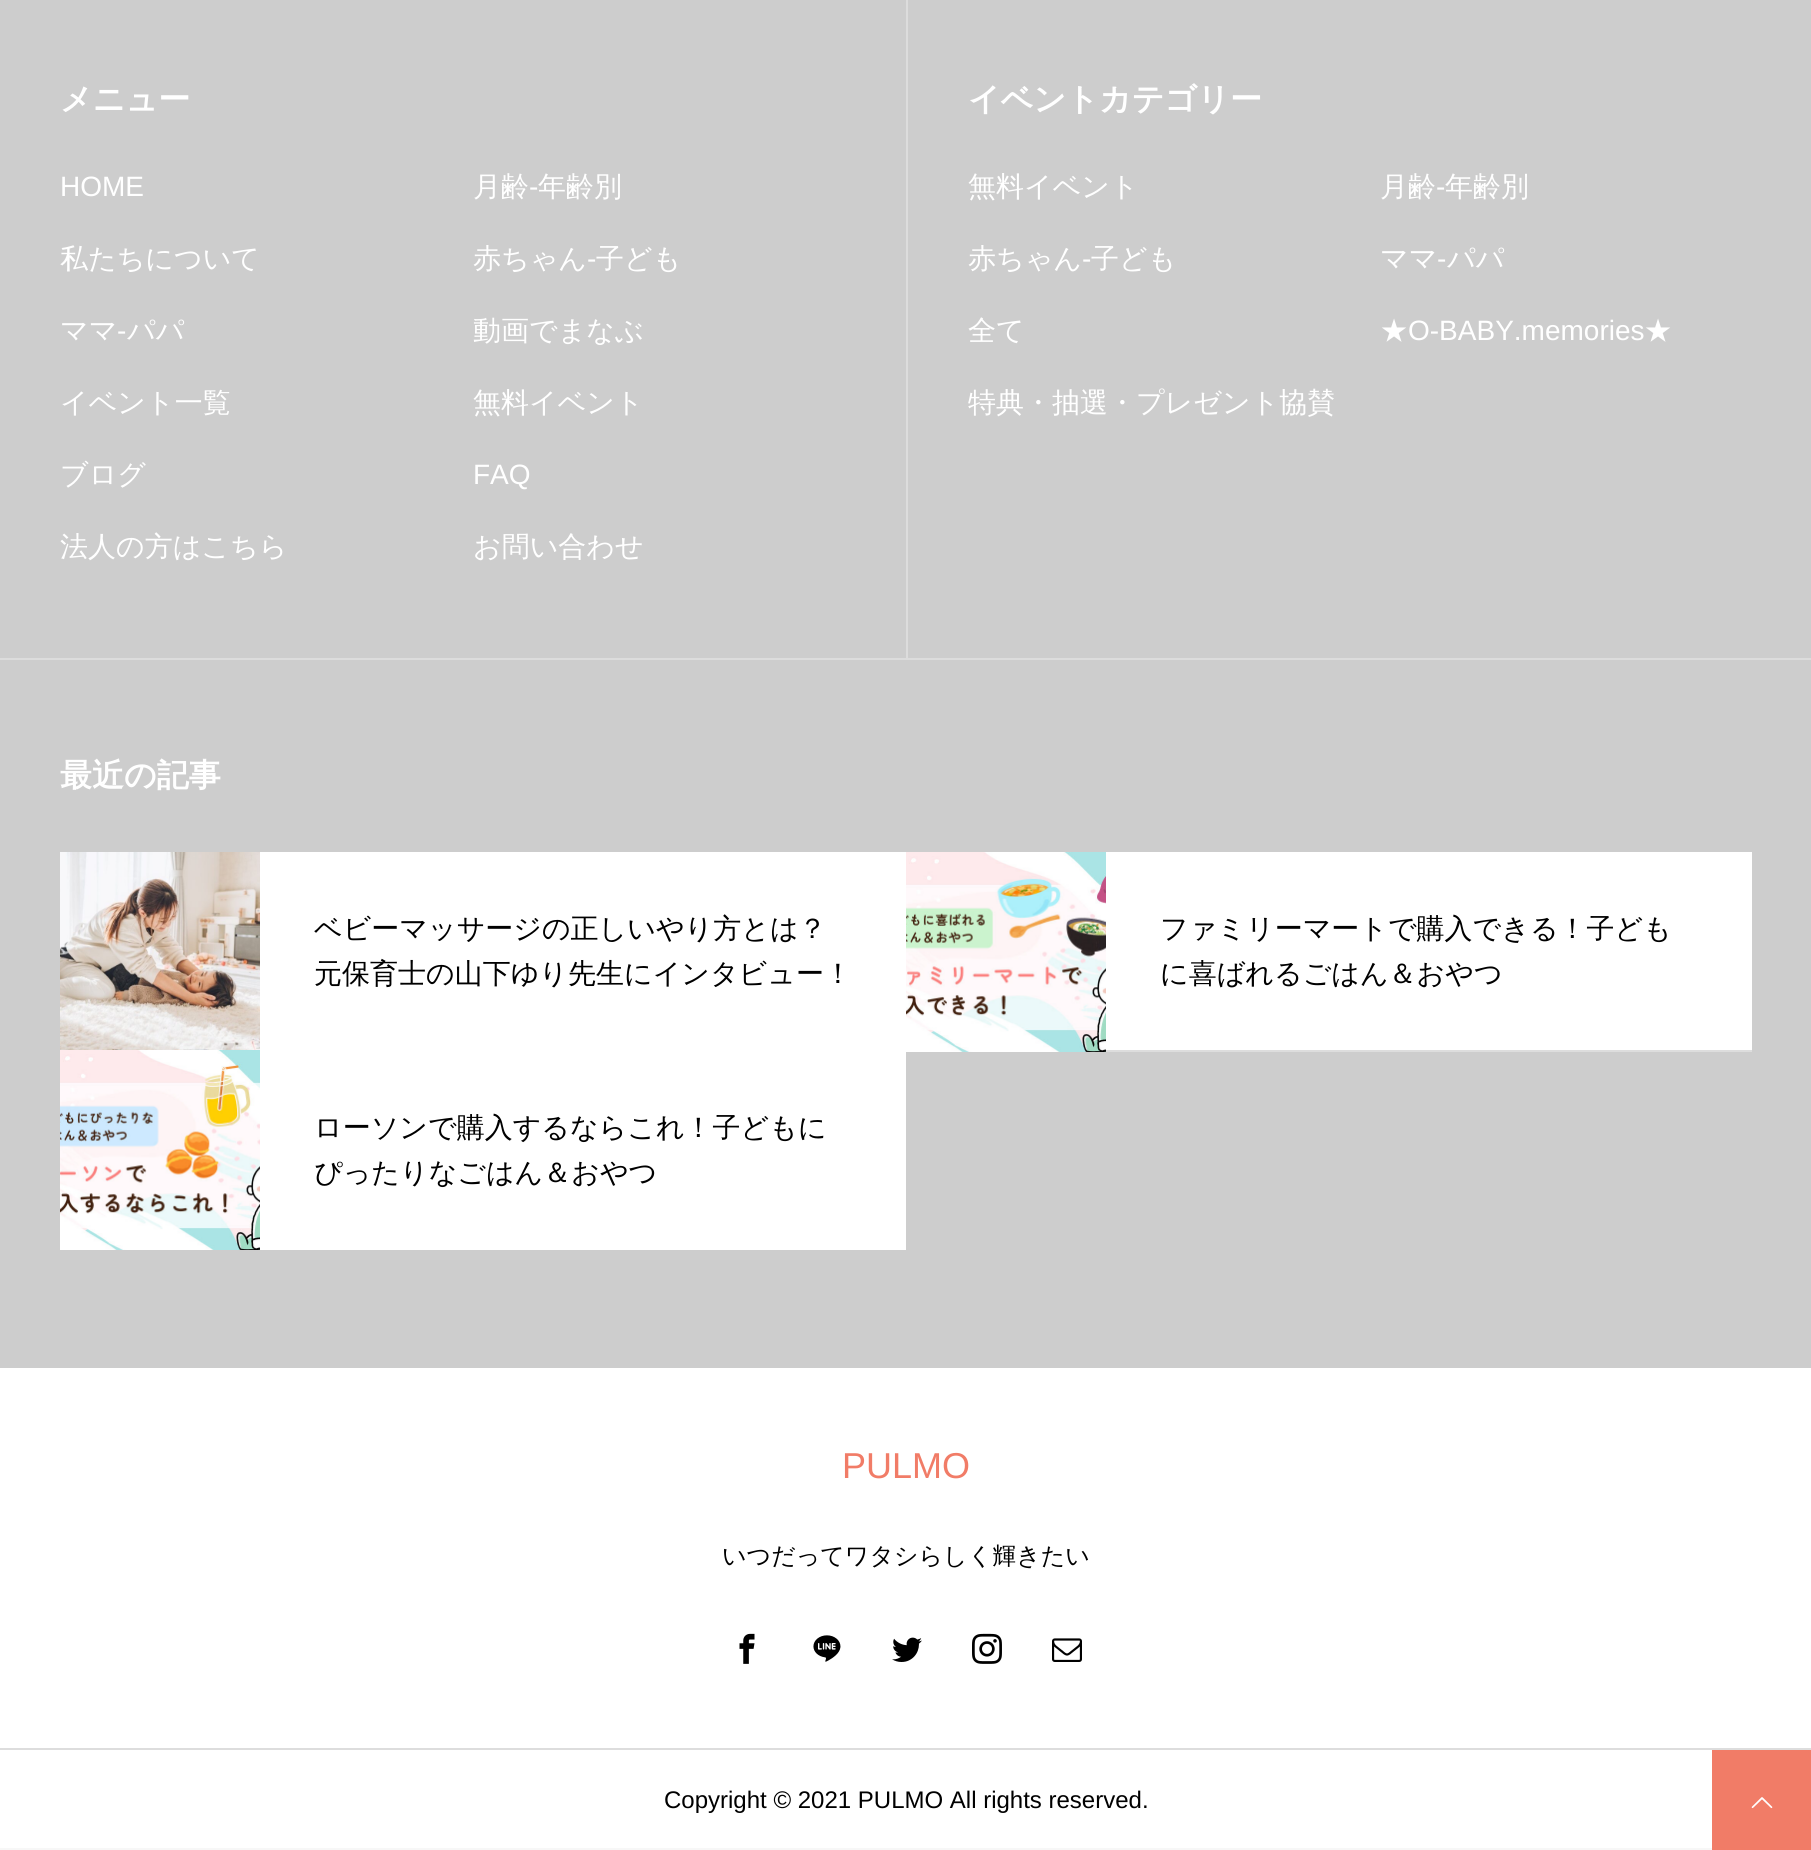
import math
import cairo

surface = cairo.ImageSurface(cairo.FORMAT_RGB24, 1811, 1850)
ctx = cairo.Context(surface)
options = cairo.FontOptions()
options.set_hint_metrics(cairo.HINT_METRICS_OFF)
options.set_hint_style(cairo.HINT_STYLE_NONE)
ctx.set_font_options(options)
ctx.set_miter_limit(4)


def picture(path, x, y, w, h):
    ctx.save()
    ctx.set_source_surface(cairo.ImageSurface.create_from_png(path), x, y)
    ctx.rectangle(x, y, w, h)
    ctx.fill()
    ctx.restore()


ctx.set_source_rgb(0.965, 0.965, 0.965)
ctx.paint()
ctx.set_source_rgb(1, 1, 1)
ctx.rectangle(0, 1368, 1811, 480)
ctx.fill()
ctx.set_source_rgb(0.804, 0.804, 0.804)
ctx.rectangle(0, 0, 1811, 1368)
ctx.fill()
ctx.select_font_face("WenQuanYi Zen Hei", cairo.FONT_SLANT_NORMAL, cairo.FONT_WEIGHT_BOLD)
ctx.set_font_size(32)
ctx.set_source_rgb(1, 1, 1)
ctx.move_to(60, 110)
ctx.show_text("メニュー")
ctx.select_font_face("Liberation Sans")
ctx.set_font_size(28)
ctx.move_to(60, 196)
ctx.show_text("HOME")
ctx.select_font_face("WenQuanYi Zen Hei Medium")
ctx.move_to(473, 196)
ctx.show_text("月齢")
ctx.select_font_face("Liberation Sans")
ctx.move_to(529, 196)
ctx.show_text("-")
ctx.select_font_face("WenQuanYi Zen Hei Medium")
ctx.move_to(538, 196)
ctx.show_text("年齢別")
ctx.move_to(60, 268)
ctx.show_text("私たちについて")
ctx.move_to(473, 268)
ctx.show_text("赤ちゃん")
ctx.select_font_face("Liberation Sans")
ctx.move_to(587, 268)
ctx.show_text("-")
ctx.select_font_face("WenQuanYi Zen Hei Medium")
ctx.move_to(596, 268)
ctx.show_text("子ども")
ctx.move_to(60, 340)
ctx.show_text("ママ")
ctx.select_font_face("Liberation Sans")
ctx.move_to(117, 340)
ctx.show_text("-")
ctx.select_font_face("WenQuanYi Zen Hei Medium")
ctx.move_to(127, 340)
ctx.show_text("パパ")
ctx.move_to(473, 340)
ctx.show_text("動画でまなぶ")
ctx.move_to(60, 412)
ctx.show_text("イベント一覧")
ctx.move_to(473, 412)
ctx.show_text("無料イベント")
ctx.move_to(60, 484)
ctx.show_text("ブログ")
ctx.select_font_face("Liberation Sans")
ctx.move_to(473, 484)
ctx.show_text("FAQ")
ctx.select_font_face("WenQuanYi Zen Hei Medium")
ctx.move_to(60, 556)
ctx.show_text("法人の方はこちら")
ctx.move_to(473, 556)
ctx.show_text("お問い合わせ")
ctx.set_source_rgb(0.863, 0.863, 0.863)
ctx.rectangle(906, 0, 2, 658)
ctx.fill()
ctx.select_font_face("WenQuanYi Zen Hei", cairo.FONT_SLANT_NORMAL, cairo.FONT_WEIGHT_BOLD)
ctx.set_font_size(32)
ctx.set_source_rgb(1, 1, 1)
ctx.move_to(968, 110)
ctx.show_text("イベントカテゴリー")
ctx.select_font_face("WenQuanYi Zen Hei Medium")
ctx.set_font_size(28)
ctx.move_to(968, 196)
ctx.show_text("無料イベント")
ctx.move_to(1380, 196)
ctx.show_text("月齢")
ctx.select_font_face("Liberation Sans")
ctx.move_to(1436, 196)
ctx.show_text("-")
ctx.select_font_face("WenQuanYi Zen Hei Medium")
ctx.move_to(1445, 196)
ctx.show_text("年齢別")
ctx.move_to(968, 268)
ctx.show_text("赤ちゃん")
ctx.select_font_face("Liberation Sans")
ctx.move_to(1082, 268)
ctx.show_text("-")
ctx.select_font_face("WenQuanYi Zen Hei Medium")
ctx.move_to(1091, 268)
ctx.show_text("子ども")
ctx.move_to(1380, 268)
ctx.show_text("ママ")
ctx.select_font_face("Liberation Sans")
ctx.move_to(1437, 268)
ctx.show_text("-")
ctx.select_font_face("WenQuanYi Zen Hei Medium")
ctx.move_to(1447, 268)
ctx.show_text("パパ")
ctx.move_to(968, 340)
ctx.show_text("全て")
ctx.move_to(1380, 340)
ctx.show_text("★")
ctx.select_font_face("Liberation Sans")
ctx.move_to(1408, 340)
ctx.show_text("O-BABY.memories")
ctx.select_font_face("WenQuanYi Zen Hei Medium")
ctx.move_to(1644, 340)
ctx.show_text("★")
ctx.move_to(968, 412)
ctx.show_text("特典・抽選・プレゼント協賛")
ctx.set_source_rgb(0.863, 0.863, 0.863)
ctx.rectangle(0, 658, 1811, 2)
ctx.fill()
ctx.select_font_face("WenQuanYi Zen Hei", cairo.FONT_SLANT_NORMAL, cairo.FONT_WEIGHT_BOLD)
ctx.set_font_size(32)
ctx.set_source_rgb(1, 1, 1)
ctx.move_to(60, 786)
ctx.show_text("最近の記事")
ctx.rectangle(260, 852, 646, 398)
ctx.fill()
picture("img1.png", 60, 852, 200, 198)
ctx.select_font_face("WenQuanYi Zen Hei Medium")
ctx.set_font_size(28)
ctx.set_source_rgb(0, 0, 0)
ctx.move_to(314, 938)
ctx.show_text("ベビーマッサージの正しいやり方とは？")
ctx.move_to(314, 983)
ctx.show_text("元保育士の山下ゆり先生にインタビュー！")
ctx.set_source_rgb(1, 1, 1)
ctx.rectangle(1106, 852, 646, 198)
ctx.fill()
picture("img2.png", 906, 852, 200, 200)
ctx.set_source_rgb(0.867, 0.867, 0.867)
ctx.rectangle(1106, 1050, 646, 2)
ctx.fill()
ctx.set_source_rgb(0, 0, 0)
ctx.move_to(1160, 938)
ctx.show_text("ファミリーマートで購入できる！子ども")
ctx.move_to(1160, 983)
ctx.show_text("に喜ばれるごはん＆おやつ")
picture("img3.png", 60, 1050, 200, 200)
ctx.move_to(314, 1137)
ctx.show_text("ローソンで購入するならこれ！子どもに")
ctx.move_to(314, 1182)
ctx.show_text("ぴったりなごはん＆おやつ")
ctx.select_font_face("Liberation Sans")
ctx.set_font_size(36)
ctx.set_source_rgb(0.945, 0.486, 0.404)
ctx.move_to(842, 1478)
ctx.show_text("PULMO")
ctx.select_font_face("WenQuanYi Zen Hei Medium")
ctx.set_font_size(24)
ctx.set_source_rgb(0, 0, 0)
ctx.move_to(722, 1564)
ctx.show_text("いつだってワタシらしく輝きたい")
picture("img4.png", 739, 1633, 16, 31)
picture("img5.png", 813, 1635, 28, 27)
picture("img6.png", 892, 1637, 30, 25)
picture("img7.png", 972, 1633, 30, 31)
picture("img8.png", 1052, 1638, 30, 24)
ctx.set_source_rgb(0.867, 0.867, 0.867)
ctx.rectangle(0, 1748, 1811, 2)
ctx.fill()
ctx.select_font_face("Liberation Sans")
ctx.set_source_rgb(0, 0, 0)
ctx.move_to(664, 1808)
ctx.show_text("Copyright © 2021 PULMO All rights reserved.")
ctx.set_source_rgb(0.945, 0.486, 0.404)
ctx.rectangle(1712, 1750, 99, 100)
ctx.fill()
picture("img9.png", 1751, 1797, 22, 12)
surface.write_to_png("page.png")
